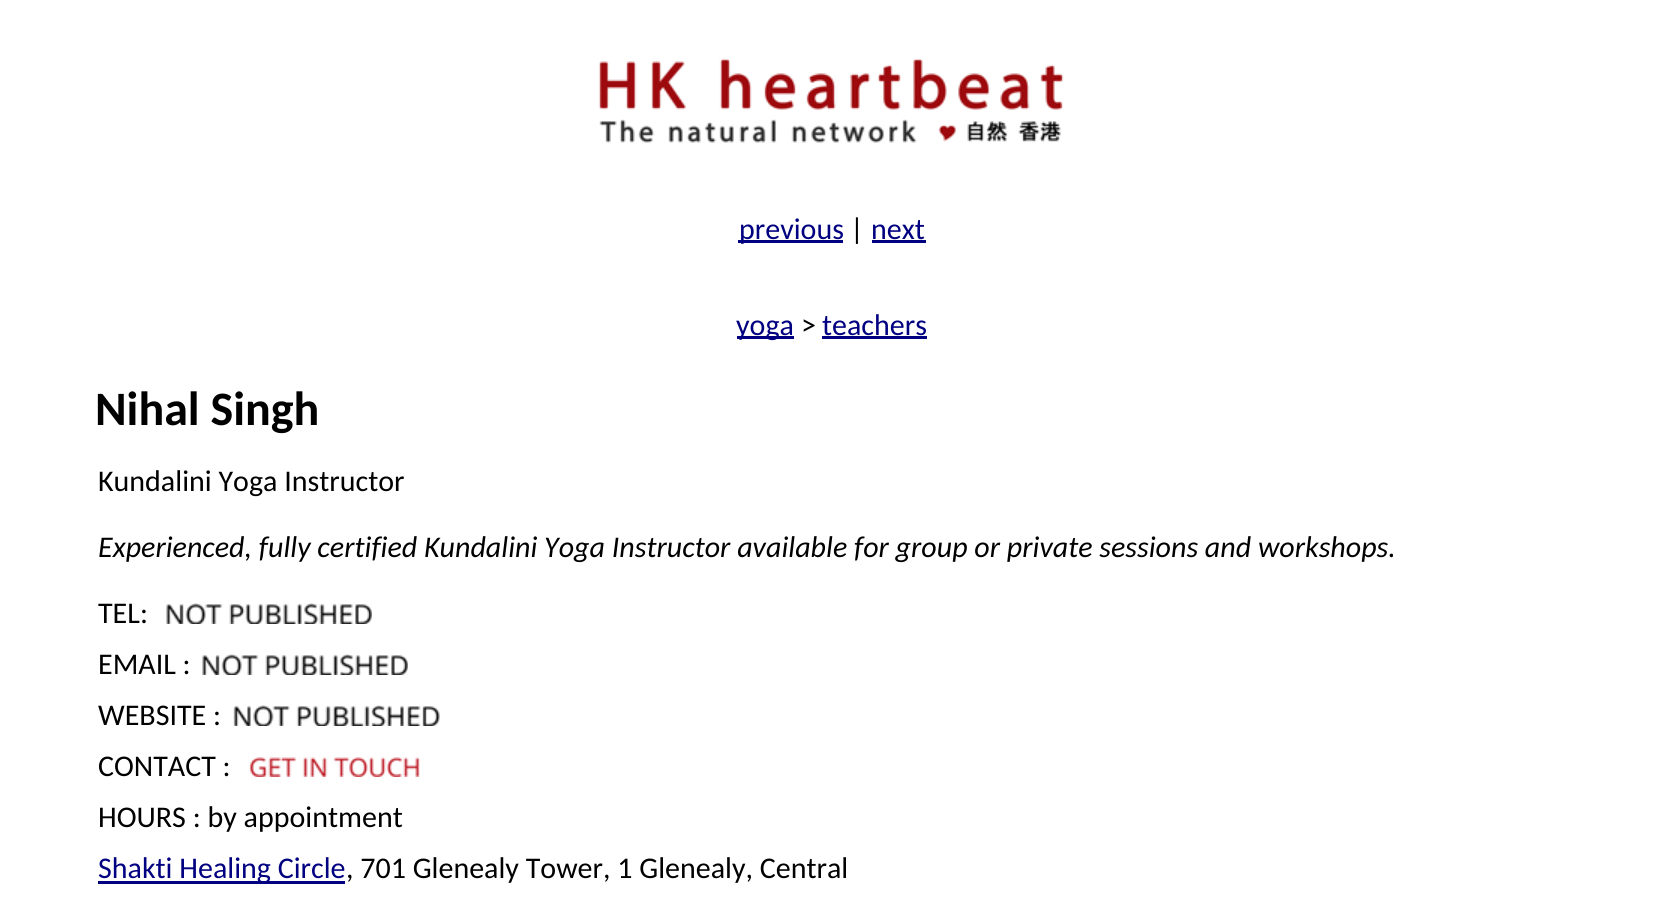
import math
import cairo

surface = cairo.ImageSurface(cairo.FORMAT_RGB24, 1663, 916)
ctx = cairo.Context(surface)
options = cairo.FontOptions()
options.set_hint_metrics(cairo.HINT_METRICS_OFF)
options.set_hint_style(cairo.HINT_STYLE_NONE)
ctx.set_font_options(options)
ctx.set_miter_limit(4)


def picture(path, x, y, w, h):
    ctx.save()
    ctx.set_source_surface(cairo.ImageSurface.create_from_png(path), x, y)
    ctx.rectangle(x, y, w, h)
    ctx.fill()
    ctx.restore()


ctx.set_source_rgb(1, 1, 1)
ctx.paint()
picture("img1.png", 598, 58, 466, 85)
ctx.set_source_rgb(0, 0, 0.502)
ctx.rectangle(738, 240, 105, 3)
ctx.fill()
ctx.select_font_face("Carlito")
ctx.set_font_size(30)
ctx.move_to(739, 239)
ctx.show_text("previous")
ctx.set_source_rgb(0, 0, 0)
ctx.move_to(850, 239)
ctx.show_text("|")
ctx.set_source_rgb(0, 0, 0.502)
ctx.move_to(871, 239)
ctx.show_text("next")
ctx.rectangle(872, 240, 54, 3)
ctx.fill()
ctx.rectangle(737, 336, 57, 3)
ctx.fill()
ctx.move_to(736, 335)
ctx.show_text("yoga")
ctx.set_source_rgb(0, 0, 0)
ctx.move_to(801, 335)
ctx.show_text(">")
ctx.set_source_rgb(0, 0, 0.502)
ctx.move_to(822, 335)
ctx.show_text("teachers")
ctx.rectangle(822, 336, 105, 3)
ctx.fill()
ctx.select_font_face("Carlito", cairo.FONT_SLANT_NORMAL, cairo.FONT_WEIGHT_BOLD)
ctx.set_font_size(48)
ctx.set_source_rgb(0, 0, 0)
ctx.move_to(95, 425)
ctx.show_text("Nihal Singh")
ctx.select_font_face("Carlito")
ctx.set_font_size(30)
ctx.move_to(98, 491)
ctx.show_text("Kundalini Yoga Instructor")
ctx.select_font_face("Carlito", cairo.FONT_SLANT_ITALIC)
ctx.move_to(98, 557)
ctx.show_text("Experienced, fully certified Kundalini Yoga Instructor available for group or private sessions and workshops.")
ctx.select_font_face("Carlito")
ctx.move_to(98, 623)
ctx.show_text("TEL:")
picture("img2.png", 166, 603, 206, 21)
ctx.move_to(98, 674)
ctx.show_text("EMAIL :")
picture("img2.png", 202, 654, 206, 21)
ctx.move_to(98, 725)
ctx.show_text("WEBSITE :")
picture("img3.png", 233, 705, 207, 21)
ctx.move_to(98, 776)
ctx.show_text("CONTACT :")
picture("img4.png", 249, 757, 171, 20)
ctx.move_to(98, 827)
ctx.show_text("HOURS : by appointment")
ctx.set_source_rgb(0, 0, 0.502)
ctx.rectangle(98, 881, 247, 3)
ctx.fill()
ctx.move_to(98, 878)
ctx.show_text("Shakti Healing Circle")
ctx.set_source_rgb(0, 0, 0)
ctx.move_to(346, 878)
ctx.show_text(", 701 Glenealy Tower, 1 Glenealy, Central")
surface.write_to_png("page.png")
